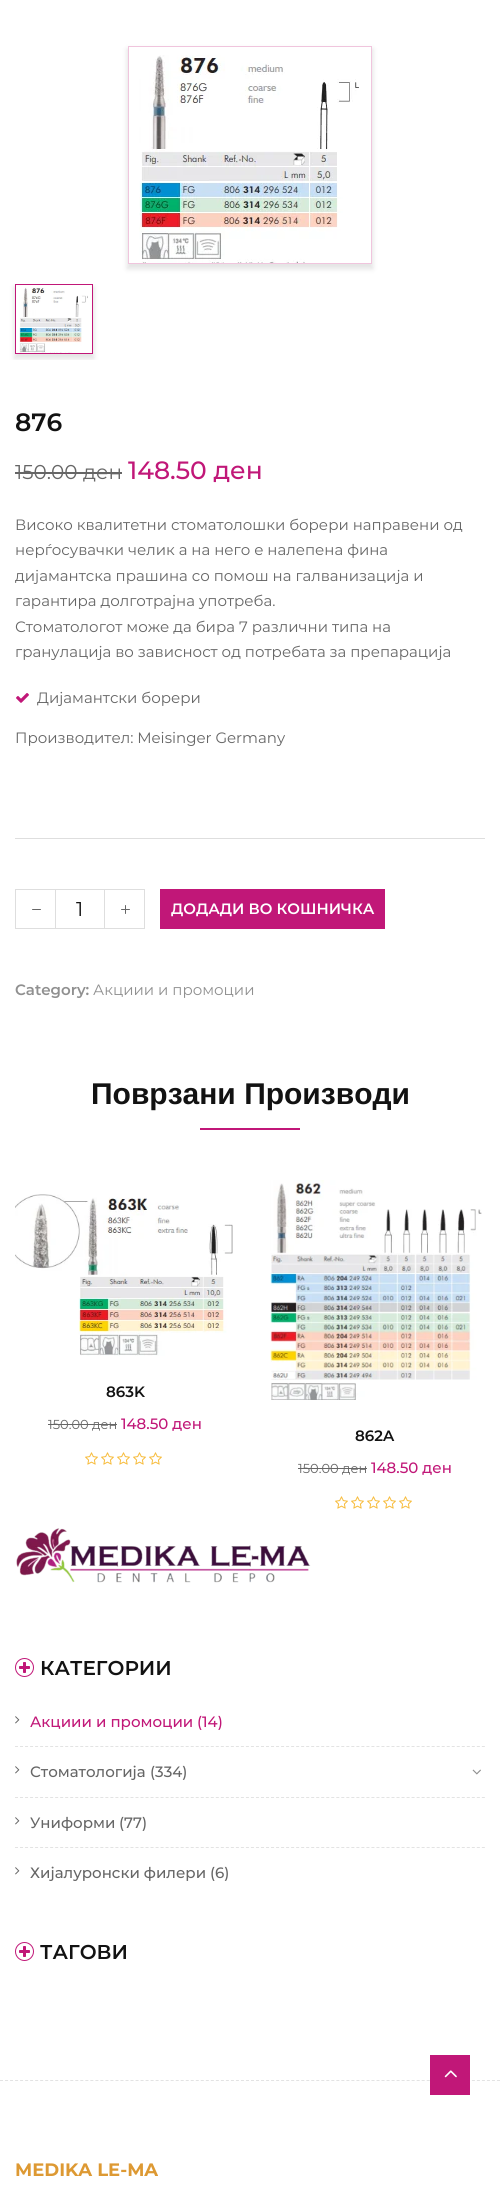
import math
import cairo

surface = cairo.ImageSurface(cairo.FORMAT_RGB24, 500, 2195)
ctx = cairo.Context(surface)
options = cairo.FontOptions()
options.set_hint_metrics(cairo.HINT_METRICS_OFF)
options.set_hint_style(cairo.HINT_STYLE_NONE)
ctx.set_font_options(options)
ctx.set_miter_limit(4)


def round_rect(x, y, w, h, r):
    ctx.new_sub_path()
    for i, (u, v) in enumerate([(x + w - r, y + h - r), (x + r, y + h - r), (x + r, y + r), (x + w - r, y + r)]):
        ctx.arc(u, v, r, i * math.pi / 2, (i + 1) * math.pi / 2)
    ctx.close_path()


def shadow(x, y, w, h, r, blur, alpha):
    ctx.push_group_with_content(cairo.CONTENT_ALPHA)
    ctx.set_operator(cairo.OPERATOR_SOURCE)
    for i in range(15, -16, -2):
        e = blur * i / 6
        if min(w, h) + 2 * e > 0:
            ctx.set_source_rgba(0, 0, 0, alpha * math.erfc((i - 1) / 8.5) / 2)
            round_rect(x - e, y - e, w + 2 * e, h + 2 * e, max(0, min(r + e + blur * .6, min(w, h) / 2 + e)))
            ctx.fill()
    ctx.mask(ctx.pop_group())


def picture(path, x, y, w, h):
    ctx.save()
    ctx.set_source_surface(cairo.ImageSurface.create_from_png(path), x, y)
    ctx.rectangle(x, y, w, h)
    ctx.fill()
    ctx.restore()


ctx.set_source_rgb(1, 1, 1)
ctx.paint()
ctx.save()
ctx.set_fill_rule(cairo.FILL_RULE_EVEN_ODD)
ctx.new_path()
ctx.move_to(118, 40)
ctx.line_to(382, 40)
ctx.line_to(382, 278)
ctx.line_to(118, 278)
ctx.close_path()
ctx.move_to(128, 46)
ctx.line_to(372, 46)
ctx.line_to(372, 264)
ctx.line_to(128, 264)
ctx.close_path()
ctx.clip()
ctx.set_source_rgb(0.569, 0.569, 0.569)
shadow(127, 49, 246, 220, 0, 2.5, 0.25)
ctx.restore()
ctx.rectangle(128.5, 46.5, 243, 217)
ctx.set_source_rgb(0.941, 0.773, 0.867)
ctx.set_line_width(1)
ctx.stroke()
picture("img1.png", 139, 55, 220, 208)
ctx.save()
ctx.rectangle(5, 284, 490, 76)
ctx.clip()
ctx.set_fill_rule(cairo.FILL_RULE_EVEN_ODD)
ctx.new_path()
ctx.move_to(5, 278)
ctx.line_to(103, 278)
ctx.line_to(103, 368)
ctx.line_to(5, 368)
ctx.close_path()
ctx.move_to(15, 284)
ctx.line_to(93, 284)
ctx.line_to(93, 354)
ctx.line_to(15, 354)
ctx.close_path()
ctx.clip()
ctx.set_source_rgb(0.569, 0.569, 0.569)
shadow(14, 287, 80, 72, 0, 2.5, 0.25)
ctx.restore()
ctx.rectangle(15.5, 284.5, 77, 69)
ctx.set_source_rgb(0.757, 0.09, 0.471)
ctx.stroke()
picture("img2.png", 19, 287, 69, 66)
ctx.select_font_face("Montserrat SemiBold")
ctx.set_font_size(25)
ctx.set_source_rgb(0.071, 0.071, 0.071)
ctx.move_to(15, 431)
ctx.show_text("876")
ctx.select_font_face("Montserrat")
ctx.set_font_size(20)
ctx.set_source_rgb(0.4, 0.4, 0.4)
ctx.move_to(15, 479)
ctx.show_text("150.00")
ctx.rectangle(15, 472, 68, 2)
ctx.fill()
ctx.move_to(83, 479)
ctx.show_text("ден")
ctx.rectangle(83, 472, 39, 2)
ctx.fill()
ctx.select_font_face("Montserrat Medium")
ctx.set_font_size(25)
ctx.set_source_rgb(0.757, 0.09, 0.471)
ctx.move_to(128, 479)
ctx.show_text("148.50 ден")
ctx.set_source_rgb(0.871, 0.871, 0.871)
ctx.rectangle(15, 838, 470, 1)
ctx.fill()
ctx.select_font_face("Montserrat")
ctx.set_font_size(15)
ctx.set_source_rgb(0.4, 0.4, 0.4)
ctx.move_to(15, 530)
ctx.show_text("Високо квалитетни стоматолошки борери направени од")
ctx.move_to(15, 555)
ctx.show_text("нерѓосувачки челик а на него е налепена фина")
ctx.move_to(15, 581)
ctx.show_text("дијамантска прашина со помош на галванизација и")
ctx.move_to(15, 606)
ctx.show_text("гарантира долготрајна употреба.")
ctx.move_to(15, 632)
ctx.show_text("Стоматологот може да бира 7 различни типа на")
ctx.move_to(15, 657)
ctx.show_text("гранулација во зависност од потребата за препарација")
picture("img3.png", 16, 693, 13, 10)
ctx.move_to(37, 703)
ctx.show_text("Дијамантски борери")
ctx.move_to(15, 743)
ctx.show_text("Производител: Meisinger Germany")
ctx.rectangle(15.5, 889.5, 129, 39)
ctx.set_source_rgb(0.871, 0.871, 0.871)
ctx.stroke()
ctx.rectangle(55, 890, 1, 38)
ctx.fill()
picture("img4.png", 32, 909, 9, 1)
ctx.set_font_size(20)
ctx.set_source_rgb(0.071, 0.071, 0.071)
ctx.move_to(76, 916)
ctx.show_text("1")
ctx.set_source_rgb(0.871, 0.871, 0.871)
ctx.rectangle(104, 890, 1, 38)
ctx.fill()
picture("img5.png", 121, 905, 9, 9)
ctx.set_source_rgb(0.757, 0.09, 0.471)
ctx.rectangle(160, 889, 225, 40)
ctx.fill()
ctx.select_font_face("Montserrat SemiBold")
ctx.set_font_size(15)
ctx.set_source_rgb(1, 1, 1)
ctx.move_to(171, 914)
ctx.show_text("ДОДАДИ ВО КОШНИЧКА")
ctx.set_source_rgb(0.565, 0.565, 0.565)
ctx.move_to(15, 995)
ctx.show_text("Category:")
ctx.select_font_face("Montserrat")
ctx.move_to(93, 995)
ctx.show_text("Акциии и промоции")
ctx.select_font_face("Liberation Sans", cairo.FONT_SLANT_NORMAL, cairo.FONT_WEIGHT_BOLD)
ctx.set_font_size(30)
ctx.set_source_rgb(0.071, 0.071, 0.071)
ctx.move_to(91, 1104)
ctx.show_text("Поврзани Производи")
ctx.set_source_rgb(0.757, 0.09, 0.471)
ctx.rectangle(200, 1128, 100, 2)
ctx.fill()
picture("img6.png", 15, 1194, 218, 162)
ctx.select_font_face("Montserrat SemiBold")
ctx.set_font_size(15)
ctx.set_source_rgb(0.071, 0.071, 0.071)
ctx.move_to(106, 1397)
ctx.show_text("863K")
ctx.select_font_face("Montserrat")
ctx.set_font_size(13)
ctx.set_source_rgb(0.4, 0.4, 0.4)
ctx.move_to(48, 1429)
ctx.show_text("150.00 ден")
ctx.rectangle(48, 1424, 69, 1)
ctx.fill()
ctx.select_font_face("Montserrat Medium")
ctx.set_font_size(15)
ctx.set_source_rgb(0.757, 0.09, 0.471)
ctx.move_to(121, 1429)
ctx.show_text("148.50 ден")
picture("img7.png", 85, 1452, 77, 13)
picture("img8.png", 270, 1180, 212, 220)
ctx.select_font_face("Montserrat SemiBold")
ctx.set_source_rgb(0.071, 0.071, 0.071)
ctx.move_to(355, 1441)
ctx.show_text("862A")
ctx.select_font_face("Montserrat")
ctx.set_font_size(13)
ctx.set_source_rgb(0.4, 0.4, 0.4)
ctx.move_to(298, 1473)
ctx.show_text("150.00 ден")
ctx.rectangle(298, 1468, 69, 1)
ctx.fill()
ctx.select_font_face("Montserrat Medium")
ctx.set_font_size(15)
ctx.set_source_rgb(0.757, 0.09, 0.471)
ctx.move_to(371, 1473)
ctx.show_text("148.50 ден")
picture("img7.png", 335, 1496, 77, 13)
picture("img9.png", 16, 1528, 295, 55)
ctx.arc(24.5, 1667.5, 9, 0, 2 * math.pi)
ctx.stroke()
picture("img10.png", 19, 1662, 11, 11)
ctx.select_font_face("Montserrat SemiBold")
ctx.set_font_size(20)
ctx.set_source_rgb(0.071, 0.071, 0.071)
ctx.move_to(40, 1675)
ctx.show_text("КАТЕГОРИИ")
picture("img11.png", 15, 1716, 5, 8)
ctx.select_font_face("Montserrat Medium")
ctx.set_font_size(15)
ctx.set_source_rgb(0.757, 0.09, 0.471)
ctx.move_to(30, 1727)
ctx.show_text("Акциии и промоции")
ctx.move_to(197, 1727)
ctx.show_text("(14)")
ctx.new_path()
ctx.move_to(15, 1746.5)
ctx.line_to(485, 1746.5)
ctx.set_source_rgb(0.89, 0.89, 0.89)
ctx.set_dash([3, 2.02])
ctx.stroke()
picture("img11.png", 15, 1766, 5, 8)
ctx.set_source_rgb(0.4, 0.4, 0.4)
ctx.move_to(30, 1777)
ctx.show_text("Стоматологија")
ctx.move_to(150, 1777)
ctx.show_text("(334)")
picture("img12.png", 472, 1769, 9, 6)
ctx.new_path()
ctx.move_to(15, 1797.5)
ctx.line_to(485, 1797.5)
ctx.set_source_rgb(0.89, 0.89, 0.89)
ctx.stroke()
picture("img11.png", 15, 1817, 5, 8)
ctx.set_source_rgb(0.4, 0.4, 0.4)
ctx.move_to(30, 1828)
ctx.show_text("Униформи")
ctx.move_to(119, 1828)
ctx.show_text("(77)")
ctx.new_path()
ctx.move_to(15, 1847.5)
ctx.line_to(485, 1847.5)
ctx.set_source_rgb(0.89, 0.89, 0.89)
ctx.stroke()
picture("img11.png", 15, 1867, 5, 8)
ctx.set_source_rgb(0.4, 0.4, 0.4)
ctx.move_to(30, 1878)
ctx.show_text("Хијалуронски филери")
ctx.move_to(210, 1878)
ctx.show_text("(6)")
ctx.new_path()
ctx.arc(24.5, 1951.5, 9, 0, 2 * math.pi)
ctx.set_source_rgb(0.757, 0.09, 0.471)
ctx.set_dash([])
ctx.stroke()
picture("img10.png", 19, 1946, 11, 11)
ctx.select_font_face("Montserrat SemiBold")
ctx.set_font_size(20)
ctx.set_source_rgb(0.071, 0.071, 0.071)
ctx.move_to(40, 1959)
ctx.show_text("ТАГОВИ")
ctx.new_path()
ctx.move_to(0, 2080.5)
ctx.line_to(500, 2080.5)
ctx.set_source_rgb(0.89, 0.89, 0.89)
ctx.set_dash([3, 2.02])
ctx.stroke()
ctx.set_source_rgb(0.757, 0.09, 0.471)
ctx.rectangle(430, 2055, 40, 40)
ctx.fill()
picture("img13.png", 444, 2070, 13, 8)
ctx.select_font_face("Montserrat", cairo.FONT_SLANT_NORMAL, cairo.FONT_WEIGHT_BOLD)
ctx.set_font_size(18)
ctx.set_source_rgb(0.867, 0.6, 0.2)
ctx.move_to(15, 2176)
ctx.show_text("MEDIKA LE-MA")
surface.write_to_png("page.png")
